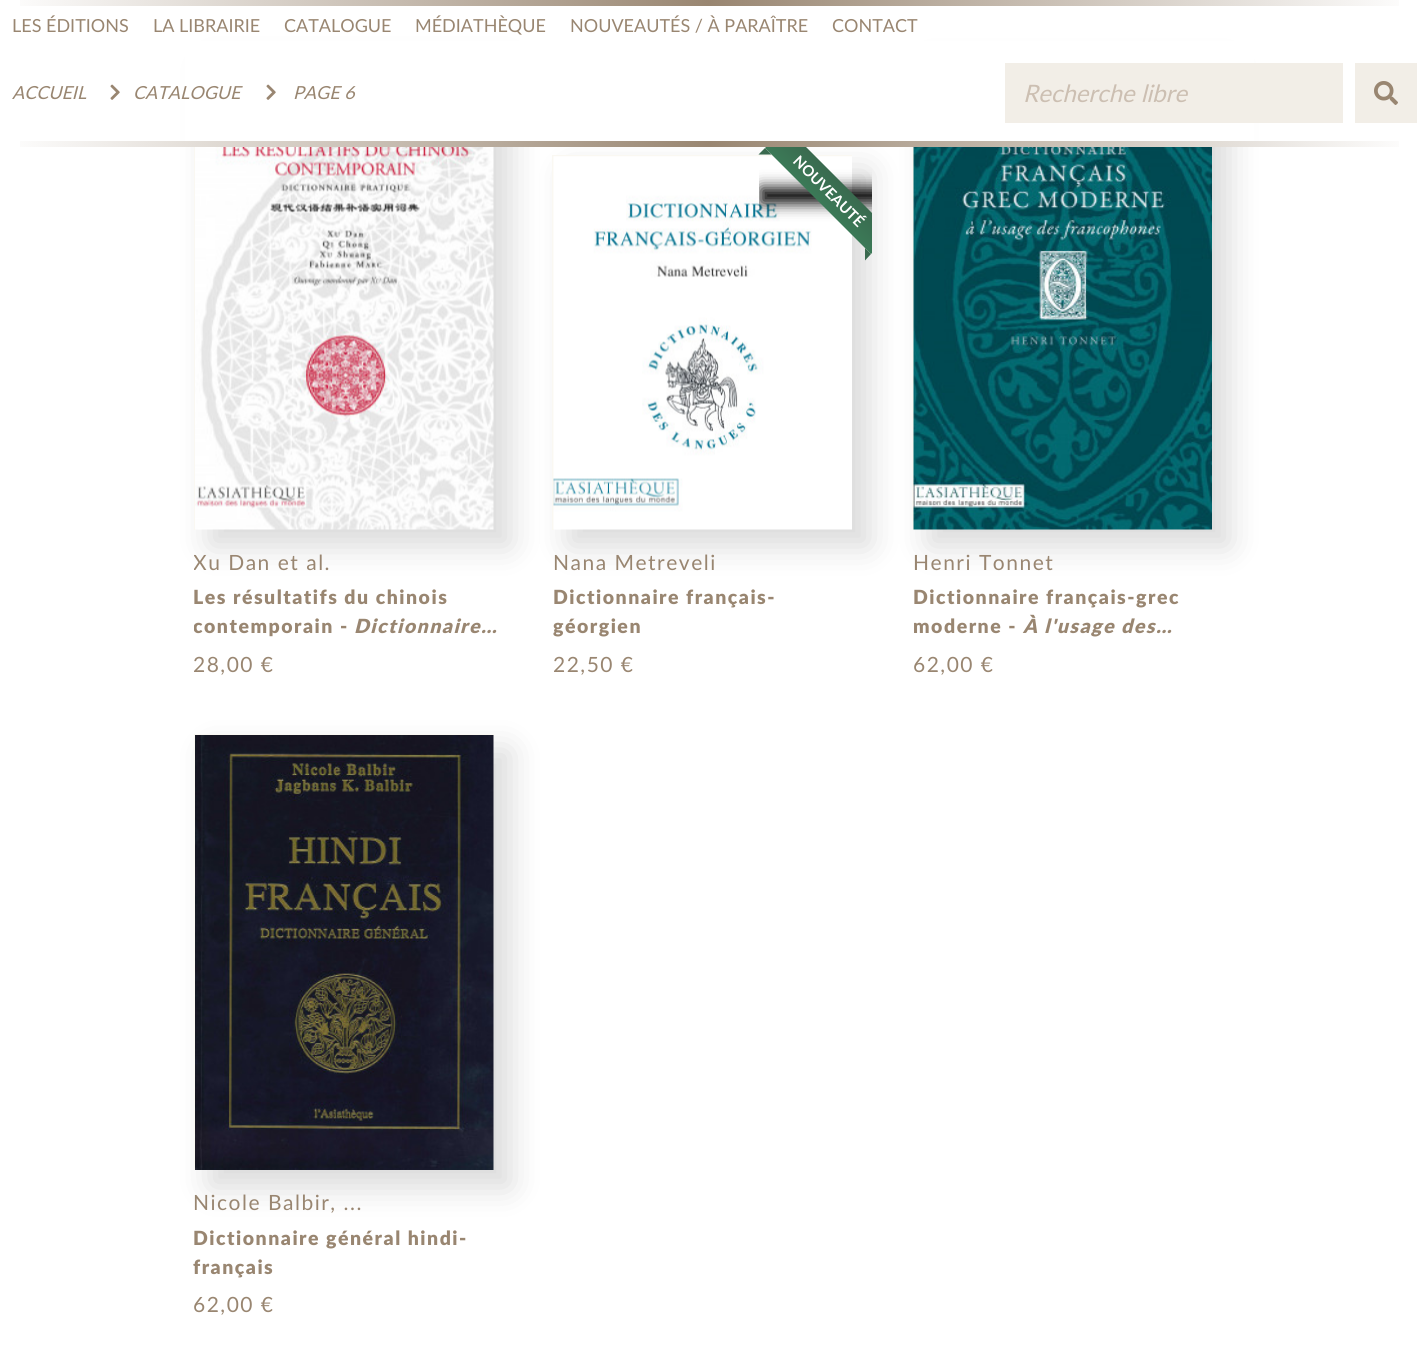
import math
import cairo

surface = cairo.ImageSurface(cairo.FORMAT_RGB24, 1417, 1370)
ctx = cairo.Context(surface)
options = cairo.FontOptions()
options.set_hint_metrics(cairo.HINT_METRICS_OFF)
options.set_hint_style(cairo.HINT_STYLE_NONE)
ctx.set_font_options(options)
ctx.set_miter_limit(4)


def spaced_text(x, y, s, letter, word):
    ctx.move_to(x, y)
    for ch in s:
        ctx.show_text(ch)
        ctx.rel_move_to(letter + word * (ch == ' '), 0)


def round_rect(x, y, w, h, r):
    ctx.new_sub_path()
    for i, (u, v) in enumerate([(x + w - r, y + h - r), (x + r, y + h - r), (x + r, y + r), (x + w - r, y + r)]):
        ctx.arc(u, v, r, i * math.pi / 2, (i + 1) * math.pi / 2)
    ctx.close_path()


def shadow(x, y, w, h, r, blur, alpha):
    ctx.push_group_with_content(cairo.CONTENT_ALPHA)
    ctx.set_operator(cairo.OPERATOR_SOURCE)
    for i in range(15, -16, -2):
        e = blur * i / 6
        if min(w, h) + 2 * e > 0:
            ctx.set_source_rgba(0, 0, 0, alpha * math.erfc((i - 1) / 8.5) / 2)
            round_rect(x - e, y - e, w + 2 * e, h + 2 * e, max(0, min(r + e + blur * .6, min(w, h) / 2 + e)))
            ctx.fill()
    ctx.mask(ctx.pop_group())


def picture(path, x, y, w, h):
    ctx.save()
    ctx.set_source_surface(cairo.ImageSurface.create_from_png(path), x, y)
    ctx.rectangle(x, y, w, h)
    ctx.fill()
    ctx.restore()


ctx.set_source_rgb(1, 1, 1)
ctx.paint()
ctx.set_source_rgb(0, 0, 0)
shadow(210, 66, 300, 480, 0, 16.5, 0.15)
shadow(569, 171, 300, 375, 0, 16.5, 0.15)
shadow(929, 68, 300, 478, 0, 16.5, 0.15)
ctx.set_source_rgb(1, 1, 1)
ctx.rectangle(185, 41, 1069, 106)
ctx.fill()
picture("img1.png", 20, 0, 1379, 147)
ctx.select_font_face("Lato")
ctx.set_font_size(18)
ctx.set_source_rgb(0.6, 0.525, 0.443)
ctx.move_to(12, 32)
ctx.show_text("LES ÉDITIONS")
ctx.move_to(153, 32)
ctx.show_text("LA LIBRAIRIE")
ctx.move_to(284, 32)
ctx.show_text("CATALOGUE")
ctx.move_to(415, 32)
ctx.show_text("MÉDIATHÈQUE")
ctx.move_to(570, 32)
ctx.show_text("NOUVEAUTÉS / À PARAÎTRE")
ctx.move_to(832, 32)
ctx.show_text("CONTACT")
ctx.select_font_face("Lato", cairo.FONT_SLANT_ITALIC)
ctx.move_to(12, 99)
ctx.show_text("ACCUEIL")
picture("img2.png", 110, 84, 10, 16)
ctx.move_to(133, 99)
ctx.show_text("CATALOGUE")
picture("img2.png", 266, 84, 10, 16)
ctx.move_to(293, 99)
ctx.show_text("PAGE 6")
ctx.set_source_rgb(0.949, 0.933, 0.906)
ctx.rectangle(1005, 63, 338, 60)
ctx.fill()
ctx.set_font_size(24)
ctx.set_source_rgb(0.8, 0.749, 0.698)
ctx.move_to(1023, 102)
ctx.show_text("Recherche libre")
ctx.set_source_rgb(0.949, 0.933, 0.906)
ctx.rectangle(1355, 63, 62, 60)
ctx.fill()
picture("img3.png", 1374, 81, 24, 24)
ctx.set_source_rgb(0.98, 0.969, 0.949)
ctx.rectangle(194, 147, 2, 383)
ctx.fill()
picture("img4.png", 195, 147, 299, 383)
ctx.save()
ctx.rectangle(194, 542, 310, 42)
ctx.clip()
ctx.select_font_face("Lato")
ctx.set_font_size(21)
ctx.set_source_rgb(0.6, 0.525, 0.443)
spaced_text(193, 570, "Xu Dan et al.", 1.5, 0)
ctx.restore()
ctx.select_font_face("Lato Black")
ctx.set_font_size(19.5)
ctx.set_source_rgb(0.6, 0.525, 0.443)
spaced_text(193, 604, "Les résultatifs du chinois", 1.5, 0)
ctx.save()
ctx.rectangle(194, 584, 310, 58)
ctx.clip()
spaced_text(193, 633, "contemporain", 1.5, 0)
ctx.restore()
spaced_text(340, 633, "-", 1.5, 0)
ctx.select_font_face("Lato Black", cairo.FONT_SLANT_ITALIC)
spaced_text(354, 633, "Dictionnaire…", 1.5, 0)
ctx.select_font_face("Lato")
ctx.set_font_size(21)
spaced_text(193, 672, "28,00 €", 1.5, 0)
ctx.set_source_rgb(0.98, 0.969, 0.949)
ctx.rectangle(552, 155, 300, 2)
ctx.fill()
ctx.rectangle(552, 155, 2, 375)
ctx.fill()
picture("img5.png", 553, 156, 299, 374)
ctx.rectangle(912, 147, 2, 383)
ctx.fill()
picture("img6.png", 913, 147, 299, 383)
ctx.save()
ctx.rectangle(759, 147, 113, 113)
ctx.clip()
ctx.set_source_rgb(0, 0, 0)
shadow(761, 188, 135, 15, 0, 7.5, 1)
ctx.restore()
ctx.save()
ctx.rectangle(759, 147, 113, 113)
ctx.clip()
gradient = cairo.LinearGradient(839, 180, 818, 201)
gradient.add_color_stop_rgba(0, 0.227, 0.416, 0.31, 1)
gradient.add_color_stop_rgba(1, 0.231, 0.478, 0.341, 1)
ctx.set_source(gradient)
ctx.new_path()
ctx.move_to(786, 127)
ctx.line_to(892, 233)
ctx.line_to(871, 254)
ctx.line_to(765, 148)
ctx.close_path()
ctx.fill()
ctx.restore()
ctx.set_source_rgb(0.227, 0.416, 0.31)
ctx.new_path()
ctx.move_to(765, 148)
ctx.line_to(771.5, 154.5)
ctx.line_to(765, 154.5)
ctx.close_path()
ctx.move_to(758.5, 154.5)
ctx.line_to(765, 148)
ctx.line_to(765, 154.5)
ctx.close_path()
ctx.fill()
ctx.select_font_face("Lato", cairo.FONT_SLANT_NORMAL, cairo.FONT_WEIGHT_BOLD)
ctx.set_font_size(15)
ctx.set_source_rgb(1, 1, 1)
ctx.save()
ctx.translate(792, 162)
ctx.rotate(45 * math.pi / 180)
ctx.move_to(0, 0)
ctx.show_text("NOUVEAUTÉ")
ctx.restore()
ctx.set_source_rgb(0.227, 0.416, 0.31)
ctx.new_path()
ctx.move_to(865, 248)
ctx.line_to(871, 254)
ctx.line_to(865, 254)
ctx.close_path()
ctx.move_to(871, 254)
ctx.line_to(865, 260.5)
ctx.line_to(865, 254)
ctx.close_path()
ctx.fill()
ctx.select_font_face("Lato")
ctx.set_font_size(21)
ctx.set_source_rgb(0.6, 0.525, 0.443)
spaced_text(553, 570, "Nana Metreveli", 1.5, 0)
ctx.select_font_face("Lato Black")
ctx.set_font_size(19.5)
spaced_text(553, 604, "Dictionnaire français-", 1.5, 0)
spaced_text(553, 633, "géorgien", 1.5, 0)
ctx.select_font_face("Lato")
ctx.set_font_size(21)
spaced_text(553, 672, "22,50 €", 1.5, 0)
spaced_text(913, 570, "Henri Tonnet", 1.5, 0)
ctx.select_font_face("Lato Black")
ctx.set_font_size(19.5)
spaced_text(913, 604, "Dictionnaire français-grec", 1.5, 0)
spaced_text(913, 633, "moderne -", 1.5, 0)
ctx.select_font_face("Lato Black", cairo.FONT_SLANT_ITALIC)
spaced_text(1023, 633, "À l'usage des…", 1.5, 0)
ctx.select_font_face("Lato")
ctx.set_font_size(21)
spaced_text(913, 672, "62,00 €", 1.5, 0)
ctx.set_source_rgb(0, 0, 0)
shadow(210, 750, 300, 437, 0, 16.5, 0.15)
ctx.set_source_rgb(0.98, 0.969, 0.949)
ctx.rectangle(194, 734, 300, 2)
ctx.fill()
ctx.rectangle(194, 734, 2, 436)
ctx.fill()
picture("img7.png", 195, 735, 299, 435)
ctx.set_source_rgb(0.6, 0.525, 0.443)
spaced_text(193, 1210, "Nicole Balbir, ...", 1.5, 0)
ctx.select_font_face("Lato Black")
ctx.set_font_size(19.5)
spaced_text(193, 1245, "Dictionnaire général hindi-", 1.5, 0)
spaced_text(193, 1274, "français", 1.5, 0)
ctx.select_font_face("Lato")
ctx.set_font_size(21)
spaced_text(193, 1312, "62,00 €", 1.5, 0)
surface.write_to_png("page.png")
